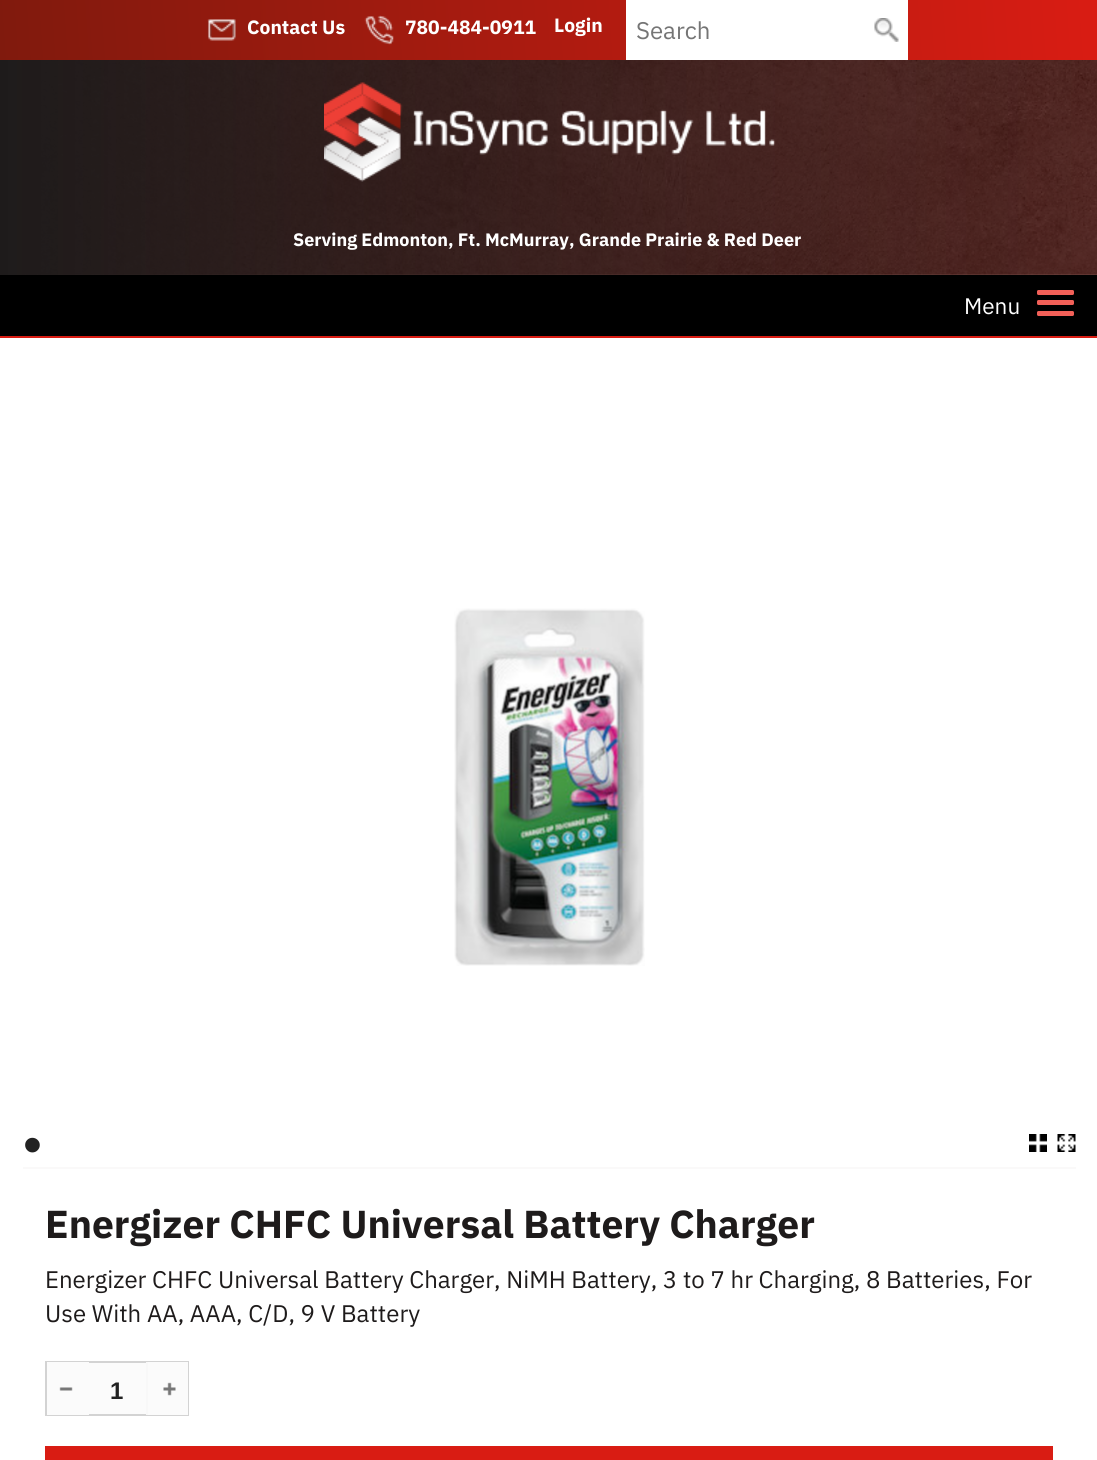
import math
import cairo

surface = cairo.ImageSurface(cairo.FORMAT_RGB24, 1097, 1460)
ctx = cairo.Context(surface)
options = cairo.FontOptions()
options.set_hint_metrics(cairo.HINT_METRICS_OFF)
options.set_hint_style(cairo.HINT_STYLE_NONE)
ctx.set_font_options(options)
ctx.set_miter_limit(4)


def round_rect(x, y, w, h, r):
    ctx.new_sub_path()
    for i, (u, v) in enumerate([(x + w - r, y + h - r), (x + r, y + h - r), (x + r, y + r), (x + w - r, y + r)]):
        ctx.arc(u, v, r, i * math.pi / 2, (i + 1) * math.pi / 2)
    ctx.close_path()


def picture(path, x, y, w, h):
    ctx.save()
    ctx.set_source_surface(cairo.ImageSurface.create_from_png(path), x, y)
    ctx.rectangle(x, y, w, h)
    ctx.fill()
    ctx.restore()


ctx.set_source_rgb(1, 1, 1)
ctx.paint()
gradient = cairo.LinearGradient(1097, -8, 0.6, 68)
gradient.add_color_stop_rgba(0, 0.851, 0.11, 0.075, 1)
gradient.add_color_stop_rgba(1, 0.502, 0.102, 0.051, 1)
ctx.set_source(gradient)
ctx.rectangle(0, 0, 1097, 60)
ctx.fill()
picture("img1.png", 207, 19, 29, 22)
ctx.select_font_face("IBM Plex Sans", cairo.FONT_SLANT_NORMAL, cairo.FONT_WEIGHT_BOLD)
ctx.set_font_size(19.25)
ctx.set_source_rgb(1, 1, 1)
ctx.move_to(247, 34)
ctx.show_text("Contact Us")
picture("img2.png", 364, 15, 30, 30)
ctx.move_to(405, 34)
ctx.show_text("780-484-0911")
ctx.move_to(554, 32)
ctx.show_text("Login")
ctx.rectangle(626, 0, 282, 60)
ctx.fill()
ctx.select_font_face("IBM Plex Sans")
ctx.set_font_size(24)
ctx.set_source_rgb(0.459, 0.459, 0.459)
ctx.move_to(636, 39)
ctx.show_text("Search")
picture("img3.png", 874, 18, 25, 24)
picture("img4.png", 25, 60, 1072, 215)
gradient = cairo.LinearGradient(0, 167, 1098, 167)
gradient.add_color_stop_rgba(0, 0.118, 0.106, 0.106, 1)
gradient.add_color_stop_rgba(1, 0.255, 0.027, 0, 0.74)
ctx.set_source(gradient)
ctx.rectangle(0, 60, 1097, 215)
ctx.fill()
picture("img5.png", 324, 82, 452, 100)
ctx.select_font_face("IBM Plex Sans", cairo.FONT_SLANT_NORMAL, cairo.FONT_WEIGHT_BOLD)
ctx.set_font_size(18)
ctx.set_source_rgb(1, 1, 1)
ctx.move_to(293, 246)
ctx.show_text("Serving Edmonton, Ft. McMurray, Grande Prairie & Red Deer")
ctx.set_source_rgb(0, 0, 0)
ctx.rectangle(0, 275, 1097, 61)
ctx.fill()
ctx.set_source_rgb(0.851, 0.11, 0.075)
ctx.rectangle(0, 336, 1097, 2)
ctx.fill()
ctx.set_source_rgb(0.949, 0.376, 0.345)
round_rect(1037, 290, 37, 5, 1.5)
ctx.fill()
ctx.select_font_face("IBM Plex Sans")
ctx.set_font_size(22.5)
ctx.set_source_rgb(1, 1, 1)
ctx.move_to(964, 314)
ctx.show_text("Menu")
ctx.set_source_rgb(0.949, 0.376, 0.345)
round_rect(1037, 300, 37, 5, 1.5)
ctx.fill()
round_rect(1037, 311, 37, 5, 1.5)
ctx.fill()
ctx.set_source_rgb(0.98, 0.976, 0.976)
ctx.rectangle(23, 1167, 1053, 2)
ctx.fill()
picture("img6.png", 454, 608, 191, 358)
ctx.select_font_face("Liberation Sans")
ctx.set_font_size(54)
ctx.set_source_rgb(0.133, 0.133, 0.133)
ctx.move_to(23, 1163)
ctx.show_text("•")
picture("img7.png", 1029, 1134, 18, 18)
picture("img8.png", 1057, 1134, 19, 18)
ctx.select_font_face("IBM Plex Sans", cairo.FONT_SLANT_NORMAL, cairo.FONT_WEIGHT_BOLD)
ctx.set_font_size(39)
ctx.set_source_rgb(0.118, 0.106, 0.106)
ctx.move_to(45, 1238)
ctx.show_text("Energizer CHFC Universal Battery Charger")
ctx.select_font_face("IBM Plex Sans")
ctx.set_font_size(24)
ctx.move_to(45, 1288)
ctx.show_text("Energizer CHFC Universal Battery Charger, NiMH Battery, 3 to 7 hr Charging, 8 Batteries, For")
ctx.move_to(45, 1322)
ctx.show_text("Use With AA, AAA, C/D, 9 V Battery")
ctx.set_source_rgb(0.984, 0.984, 0.984)
ctx.rectangle(89, 1363, 57, 51)
ctx.fill()
ctx.rectangle(46, 1362, 142, 53)
ctx.set_source_rgb(0.827, 0.827, 0.827)
ctx.stroke()
ctx.set_source_rgb(0.984, 0.984, 0.984)
ctx.rectangle(47, 1362, 42, 53)
ctx.fill()
picture("img9.png", 59, 1387, 14, 4)
ctx.select_font_face("Liberation Sans", cairo.FONT_SLANT_NORMAL, cairo.FONT_WEIGHT_BOLD)
ctx.set_source_rgb(0.133, 0.133, 0.133)
ctx.move_to(110, 1399)
ctx.show_text("1")
ctx.set_source_rgb(0.984, 0.984, 0.984)
ctx.rectangle(148, 1362, 40, 53)
ctx.fill()
ctx.set_source_rgb(0.969, 0.969, 0.969)
ctx.rectangle(146, 1362, 2, 53)
ctx.fill()
picture("img10.png", 163, 1382, 13, 14)
ctx.set_source_rgb(0.851, 0.11, 0.075)
ctx.rectangle(45, 1446, 1008, 14)
ctx.fill()
surface.write_to_png("page.png")
